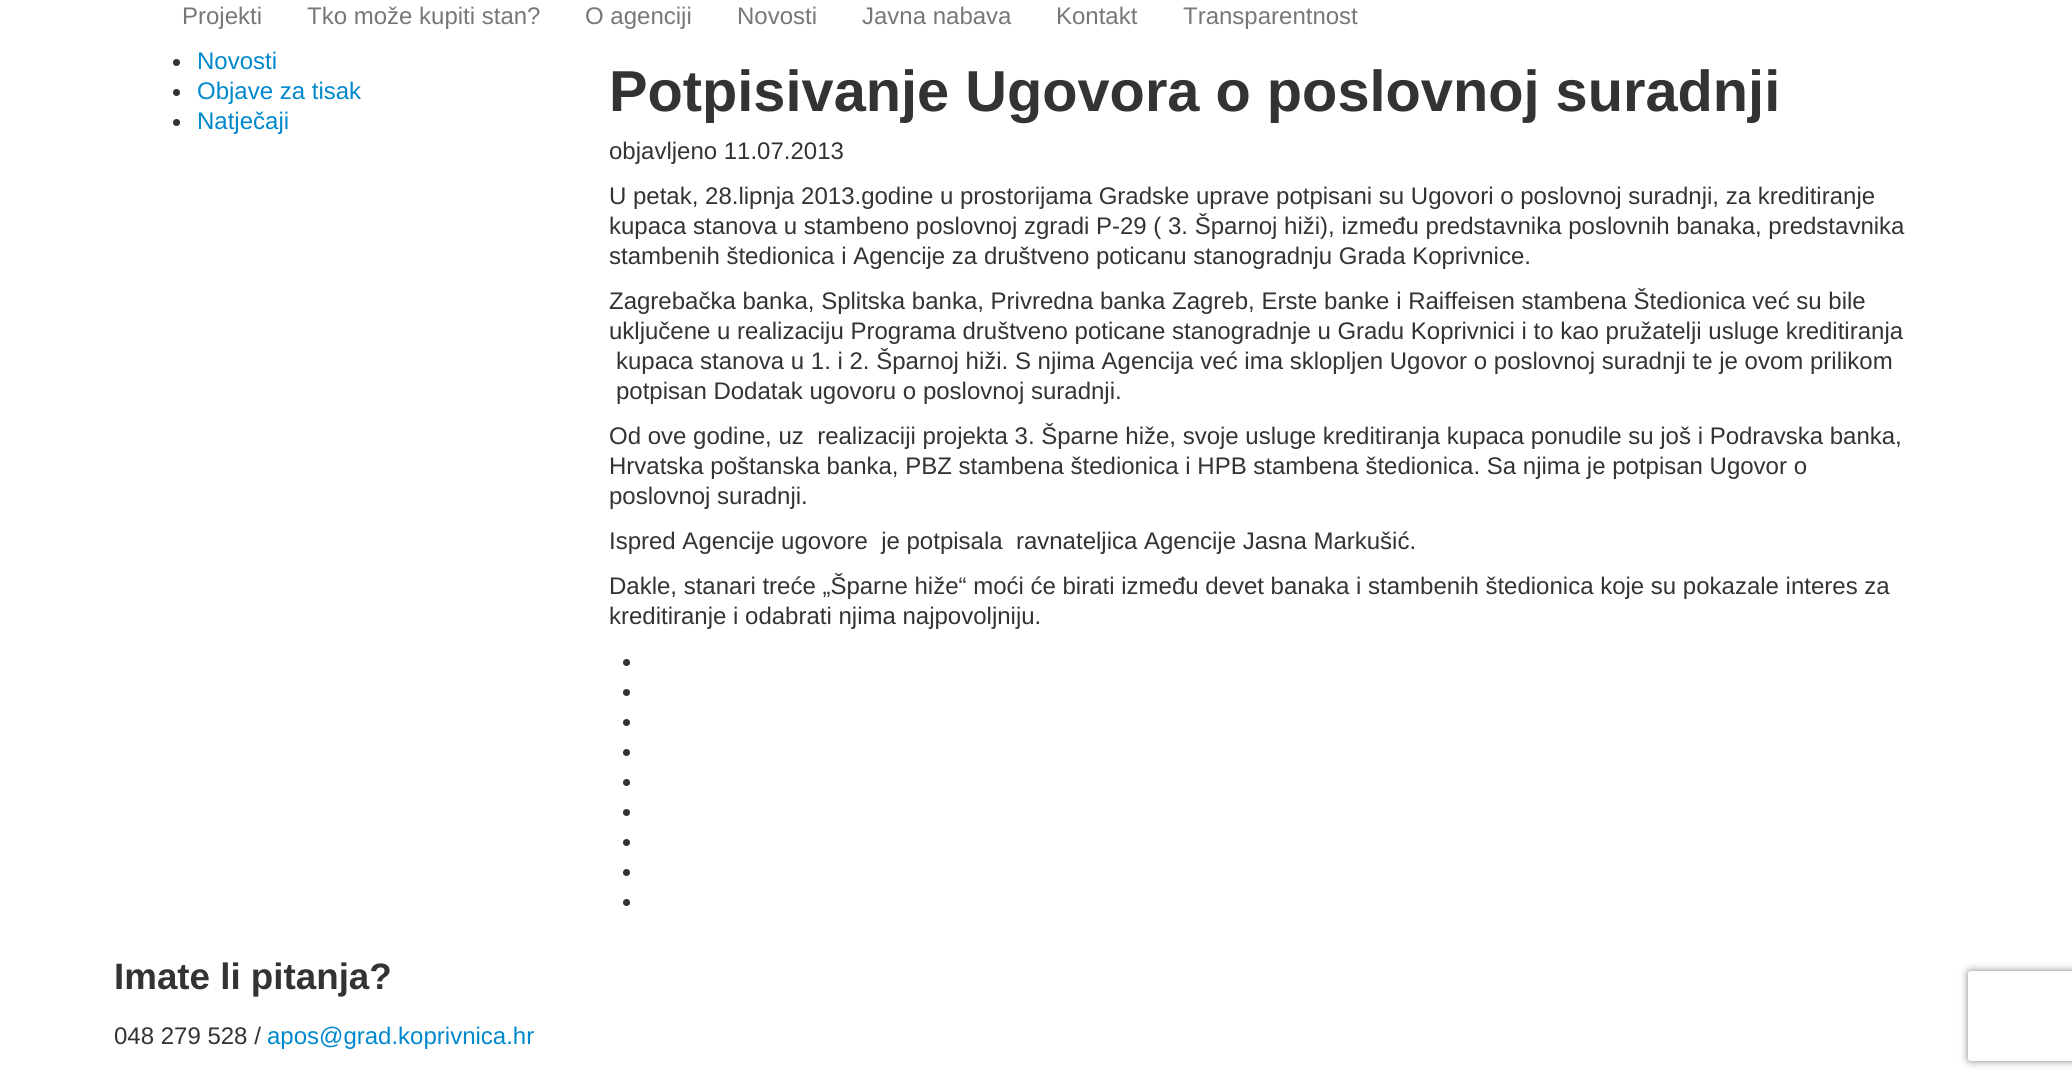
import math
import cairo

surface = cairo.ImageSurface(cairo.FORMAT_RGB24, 2072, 1081)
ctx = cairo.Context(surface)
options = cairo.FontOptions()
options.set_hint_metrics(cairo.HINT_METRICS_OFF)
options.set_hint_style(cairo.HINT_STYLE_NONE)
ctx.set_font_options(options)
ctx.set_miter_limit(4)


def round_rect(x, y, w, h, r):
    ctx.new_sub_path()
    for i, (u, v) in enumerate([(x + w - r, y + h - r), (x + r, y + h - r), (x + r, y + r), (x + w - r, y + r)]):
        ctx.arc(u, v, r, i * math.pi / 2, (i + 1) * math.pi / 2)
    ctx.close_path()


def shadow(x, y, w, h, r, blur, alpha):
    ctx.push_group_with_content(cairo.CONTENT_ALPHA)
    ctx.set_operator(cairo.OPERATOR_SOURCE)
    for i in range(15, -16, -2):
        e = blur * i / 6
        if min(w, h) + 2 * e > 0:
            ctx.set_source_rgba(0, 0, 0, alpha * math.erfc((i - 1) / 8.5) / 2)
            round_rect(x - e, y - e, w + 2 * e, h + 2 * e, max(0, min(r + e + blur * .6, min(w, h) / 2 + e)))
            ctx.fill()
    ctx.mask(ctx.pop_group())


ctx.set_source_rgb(1, 1, 1)
ctx.paint()
ctx.select_font_face("Liberation Sans")
ctx.set_font_size(24)
ctx.set_source_rgb(0.467, 0.467, 0.467)
ctx.move_to(182, 24)
ctx.show_text("Projekti")
ctx.move_to(307, 24)
ctx.show_text("Tko može kupiti stan?")
ctx.move_to(585, 24)
ctx.show_text("O agenciji")
ctx.move_to(737, 24)
ctx.show_text("Novosti")
ctx.move_to(862, 24)
ctx.show_text("Javna nabava")
ctx.move_to(1056, 24)
ctx.show_text("Kontakt")
ctx.move_to(1183, 24)
ctx.show_text("Transparentnost")
ctx.set_source_rgb(0.2, 0.2, 0.2)
ctx.new_path()
ctx.arc(176.5, 62.5, 3.5, 0, 2 * math.pi)
ctx.fill()
ctx.set_source_rgb(0, 0.533, 0.8)
ctx.move_to(197, 69)
ctx.show_text("Novosti")
ctx.set_source_rgb(0.2, 0.2, 0.2)
ctx.new_path()
ctx.arc(176.5, 92.5, 3.5, 0, 2 * math.pi)
ctx.fill()
ctx.set_source_rgb(0, 0.533, 0.8)
ctx.move_to(197, 99)
ctx.show_text("Objave za tisak")
ctx.set_source_rgb(0.2, 0.2, 0.2)
ctx.new_path()
ctx.arc(176.5, 122.5, 3.5, 0, 2 * math.pi)
ctx.fill()
ctx.set_source_rgb(0, 0.533, 0.8)
ctx.move_to(197, 129)
ctx.show_text("Natječaji")
ctx.select_font_face("Liberation Sans", cairo.FONT_SLANT_NORMAL, cairo.FONT_WEIGHT_BOLD)
ctx.set_font_size(57.75)
ctx.set_source_rgb(0.2, 0.2, 0.2)
ctx.move_to(609, 111)
ctx.show_text("Potpisivanje Ugovora o poslovnoj suradnji")
ctx.select_font_face("Liberation Sans")
ctx.set_font_size(24)
ctx.move_to(609, 159)
ctx.show_text("objavljeno 11.07.2013")
ctx.move_to(609, 204)
ctx.show_text("U petak, 28.lipnja 2013.godine u prostorijama Gradske uprave potpisani su Ugovori o poslovnoj suradnji, za kreditiranje")
ctx.move_to(609, 234)
ctx.show_text("kupaca stanova u stambeno poslovnoj zgradi P-29 ( 3. Šparnoj hiži), između predstavnika poslovnih banaka, predstavnika")
ctx.move_to(609, 264)
ctx.show_text("stambenih štedionica i Agencije za društveno poticanu stanogradnju Grada Koprivnice.")
ctx.move_to(609, 309)
ctx.show_text("Zagrebačka banka, Splitska banka, Privredna banka Zagreb, Erste banke i Raiffeisen stambena Štedionica već su bile")
ctx.move_to(609, 339)
ctx.show_text("uključene u realizaciju Programa društveno poticane stanogradnje u Gradu Koprivnici i to kao pružatelji usluge kreditiranja")
ctx.move_to(616, 369)
ctx.show_text("kupaca stanova u 1. i 2. Šparnoj hiži. S njima Agencija već ima sklopljen Ugovor o poslovnoj suradnji te je ovom prilikom")
ctx.move_to(616, 399)
ctx.show_text("potpisan Dodatak ugovoru o poslovnoj suradnji.")
ctx.move_to(609, 444)
ctx.show_text("Od ove godine, uz  realizaciji projekta 3. Šparne hiže, svoje usluge kreditiranja kupaca ponudile su još i Podravska banka,")
ctx.move_to(609, 474)
ctx.show_text("Hrvatska poštanska banka, PBZ stambena štedionica i HPB stambena štedionica. Sa njima je potpisan Ugovor o")
ctx.move_to(609, 504)
ctx.show_text("poslovnoj suradnji.")
ctx.move_to(609, 549)
ctx.show_text("Ispred Agencije ugovore  je potpisala  ravnateljica Agencije Jasna Markušić.")
ctx.move_to(609, 594)
ctx.show_text("Dakle, stanari treće „Šparne hiže“ moći će birati između devet banaka i stambenih štedionica koje su pokazale interes za")
ctx.move_to(609, 624)
ctx.show_text("kreditiranje i odabrati njima najpovoljniju.")
ctx.new_path()
ctx.arc(626.5, 662.5, 3.5, 0, 2 * math.pi)
ctx.fill()
ctx.arc(626.5, 692.5, 3.5, 0, 2 * math.pi)
ctx.fill()
ctx.arc(626.5, 722.5, 3.5, 0, 2 * math.pi)
ctx.fill()
ctx.arc(626.5, 752.5, 3.5, 0, 2 * math.pi)
ctx.fill()
ctx.arc(626.5, 782.5, 3.5, 0, 2 * math.pi)
ctx.fill()
ctx.arc(626.5, 812.5, 3.5, 0, 2 * math.pi)
ctx.fill()
ctx.arc(626.5, 842.5, 3.5, 0, 2 * math.pi)
ctx.fill()
ctx.arc(626.5, 872.5, 3.5, 0, 2 * math.pi)
ctx.fill()
ctx.arc(626.5, 902.5, 3.5, 0, 2 * math.pi)
ctx.fill()
ctx.select_font_face("Liberation Sans", cairo.FONT_SLANT_NORMAL, cairo.FONT_WEIGHT_BOLD)
ctx.set_font_size(36.75)
ctx.move_to(114, 989)
ctx.show_text("Imate li pitanja?")
ctx.select_font_face("Liberation Sans")
ctx.set_font_size(24)
ctx.move_to(114, 1044)
ctx.show_text("048 279 528 /")
ctx.set_source_rgb(0, 0.533, 0.8)
ctx.move_to(267, 1044)
ctx.show_text("apos@grad.koprivnica.hr")
ctx.save()
ctx.set_fill_rule(cairo.FILL_RULE_EVEN_ODD)
ctx.new_path()
ctx.move_to(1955, 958)
ctx.line_to(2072, 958)
ctx.line_to(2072, 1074)
ctx.line_to(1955, 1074)
ctx.close_path()
ctx.move_to(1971, 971)
ctx.line_to(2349, 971)
ctx.curve_to(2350.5, 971, 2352, 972.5, 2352, 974)
ctx.line_to(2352, 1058)
ctx.curve_to(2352, 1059.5, 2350.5, 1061, 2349, 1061)
ctx.line_to(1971, 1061)
ctx.curve_to(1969.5, 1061, 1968, 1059.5, 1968, 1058)
ctx.line_to(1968, 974)
ctx.curve_to(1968, 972.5, 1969.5, 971, 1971, 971)
ctx.close_path()
ctx.clip()
ctx.set_source_rgb(0.502, 0.502, 0.502)
shadow(1968, 971, 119, 90, 3, 4, 1)
ctx.restore()
surface.write_to_png("page.png")
